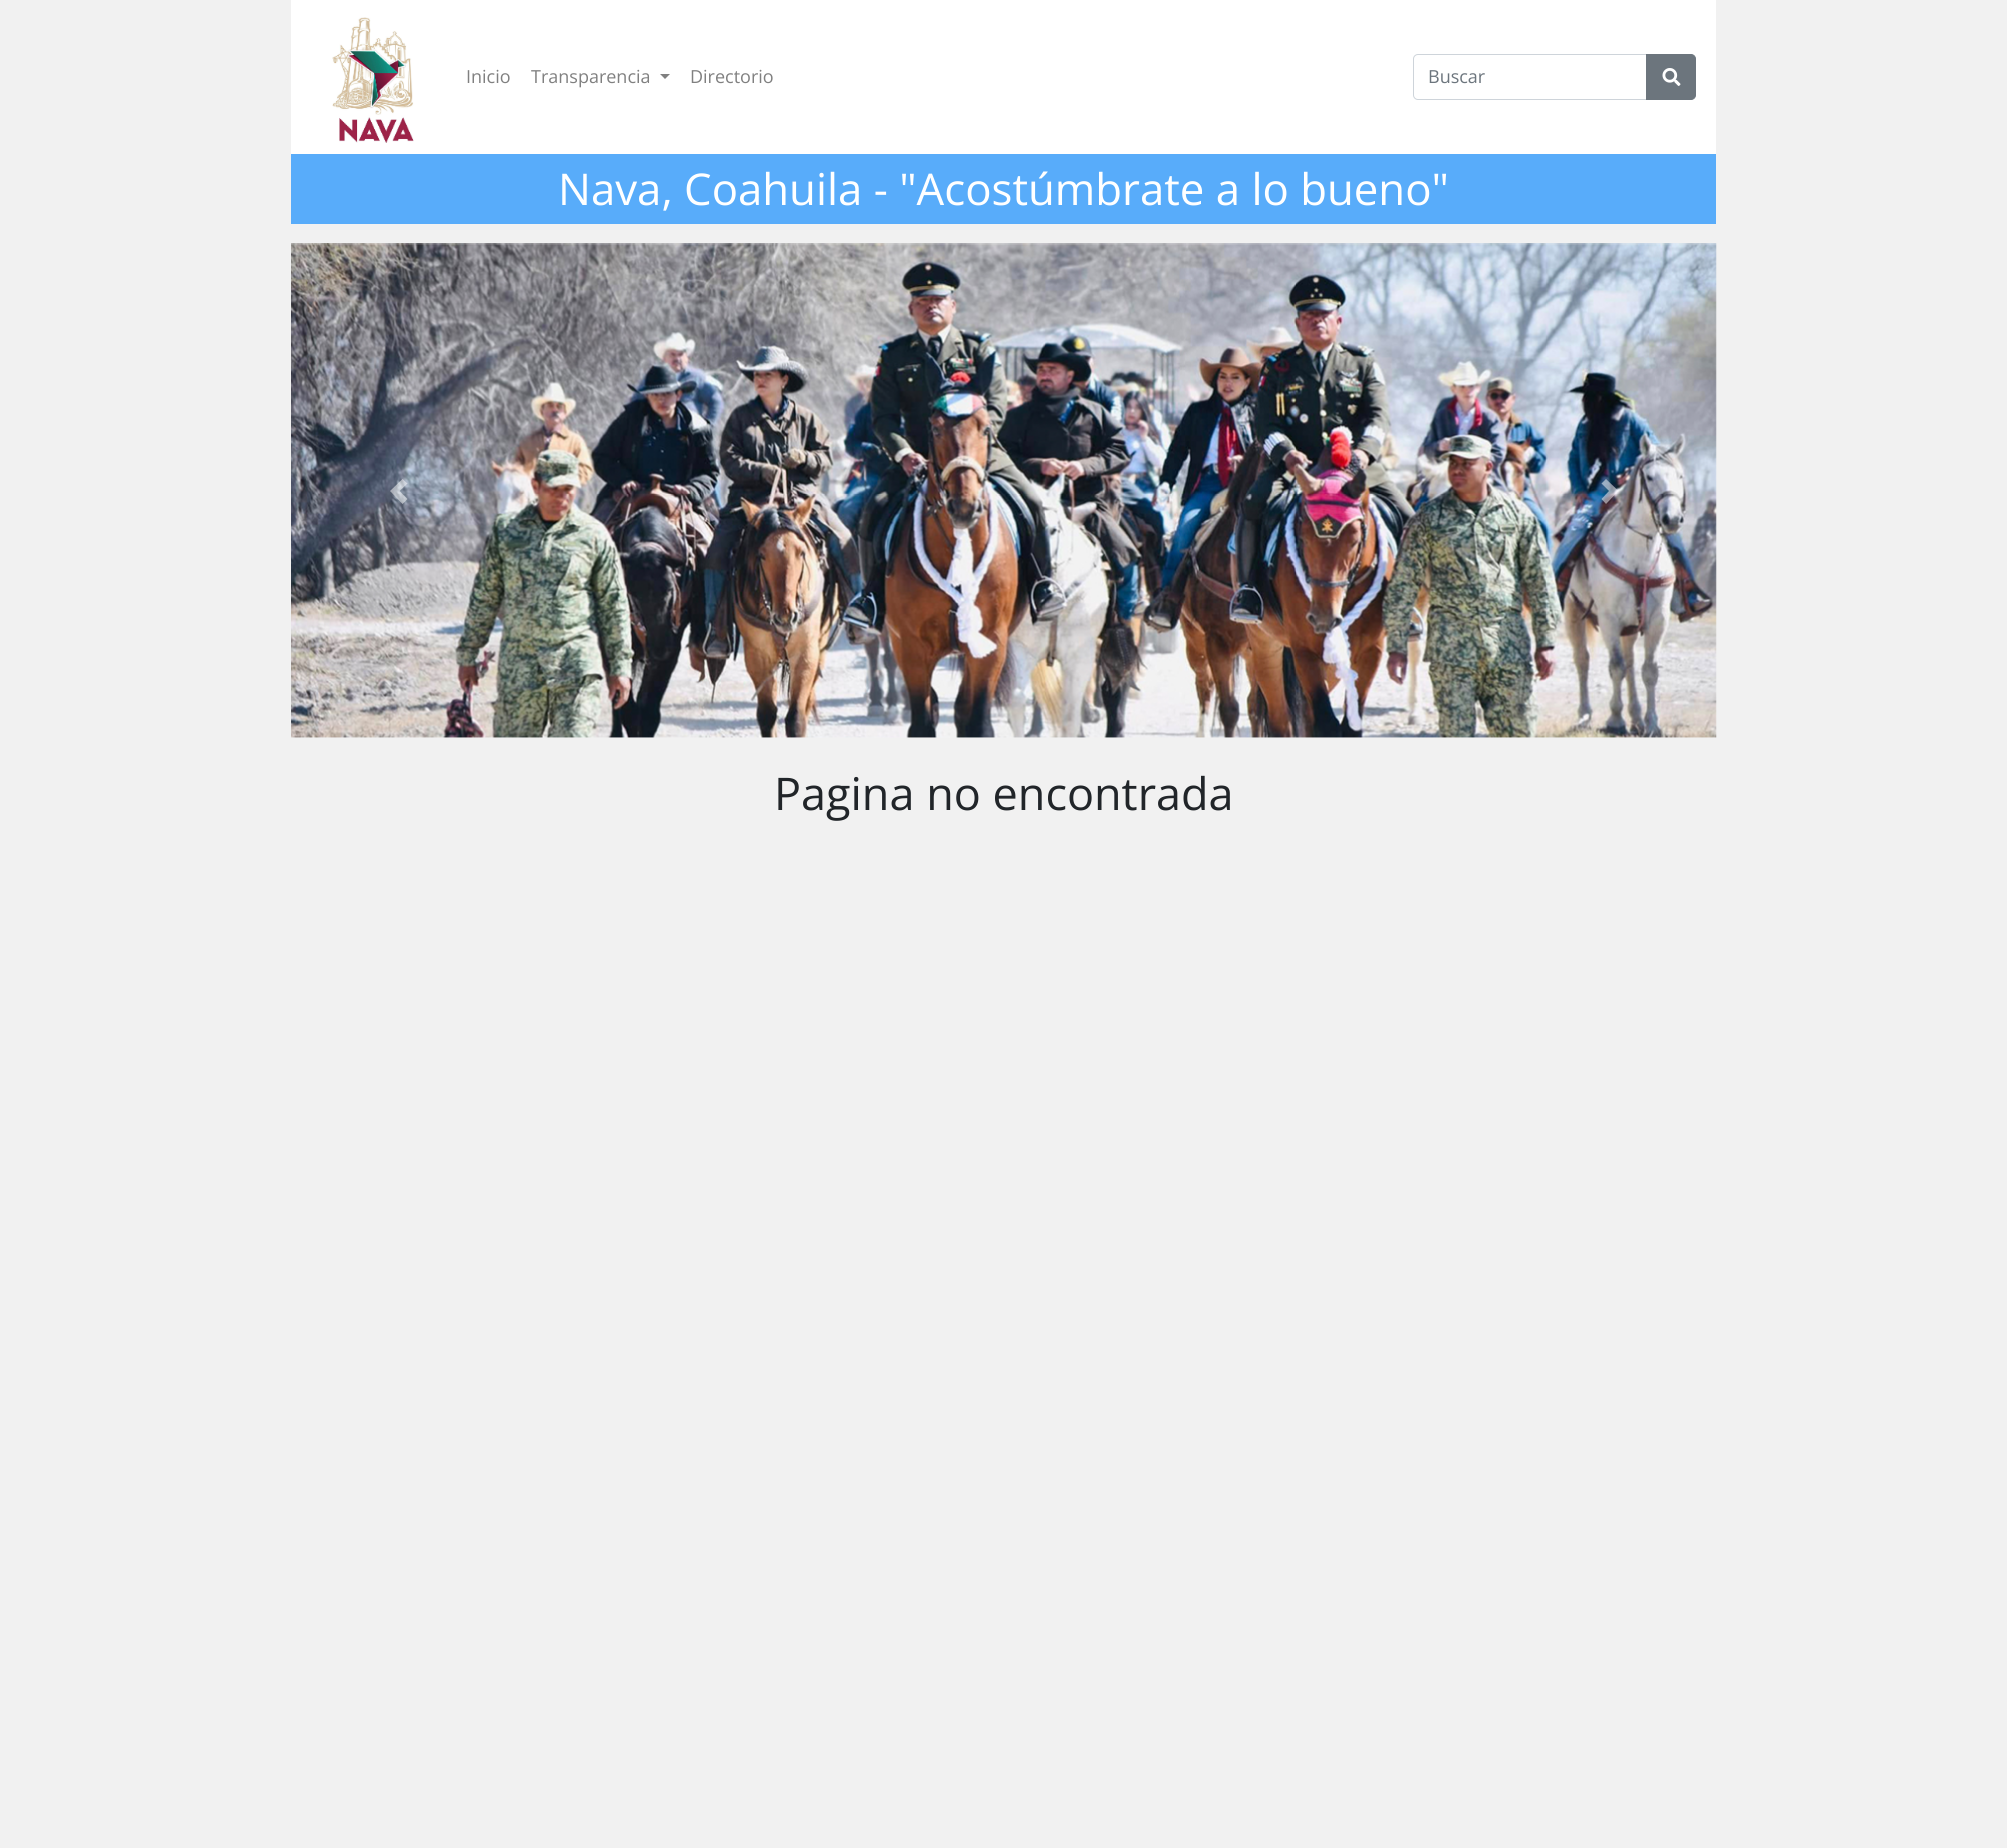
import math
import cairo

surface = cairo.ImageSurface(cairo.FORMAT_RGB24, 2007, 1848)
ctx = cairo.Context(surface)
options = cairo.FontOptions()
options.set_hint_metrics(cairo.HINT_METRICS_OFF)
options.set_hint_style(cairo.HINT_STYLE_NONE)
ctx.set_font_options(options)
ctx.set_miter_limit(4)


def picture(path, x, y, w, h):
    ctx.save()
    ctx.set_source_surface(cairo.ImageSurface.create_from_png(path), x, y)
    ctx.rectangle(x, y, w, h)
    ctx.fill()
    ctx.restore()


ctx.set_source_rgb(0.945, 0.945, 0.945)
ctx.paint()
ctx.set_source_rgb(1, 1, 1)
ctx.rectangle(291, 0, 1425, 154)
ctx.fill()
picture("img1.png", 332, 17, 82, 126)
ctx.select_font_face("Open Sans")
ctx.set_font_size(18)
ctx.set_source_rgb(0.502, 0.502, 0.502)
ctx.move_to(466, 83)
ctx.show_text("Inicio")
ctx.move_to(531, 83)
ctx.show_text("Transparencia")
ctx.new_path()
ctx.move_to(660, 74)
ctx.line_to(670, 74)
ctx.line_to(665, 79)
ctx.close_path()
ctx.fill()
ctx.move_to(690, 83)
ctx.show_text("Directorio")
ctx.new_path()
ctx.move_to(1418, 54.5)
ctx.line_to(1647.5, 54.5)
ctx.line_to(1647.5, 99.5)
ctx.line_to(1418, 99.5)
ctx.curve_to(1415.5, 99.5, 1413.5, 97.5, 1413.5, 95)
ctx.line_to(1413.5, 59)
ctx.curve_to(1413.5, 56.5, 1415.5, 54.5, 1418, 54.5)
ctx.close_path()
ctx.set_source_rgb(0.808, 0.831, 0.855)
ctx.set_line_width(1)
ctx.stroke()
ctx.set_source_rgb(0.424, 0.459, 0.49)
ctx.move_to(1428, 83)
ctx.show_text("Buscar")
ctx.new_path()
ctx.move_to(1646.5, 54.5)
ctx.line_to(1691, 54.5)
ctx.curve_to(1693.5, 54.5, 1695.5, 56.5, 1695.5, 59)
ctx.line_to(1695.5, 95)
ctx.curve_to(1695.5, 97.5, 1693.5, 99.5, 1691, 99.5)
ctx.line_to(1646.5, 99.5)
ctx.close_path()
ctx.fill_preserve()
ctx.stroke()
picture("img2.png", 1662, 68, 19, 18)
ctx.set_source_rgb(0.345, 0.675, 0.98)
ctx.rectangle(291, 154, 1425, 70)
ctx.fill()
ctx.set_font_size(43.75)
ctx.set_source_rgb(1, 1, 1)
ctx.move_to(558, 205)
ctx.show_text("Nava, Coahuila - \"Acostúmbrate a lo bueno\"")
picture("img3.png", 291, 243, 1426, 495)
ctx.set_source_rgba(1, 1, 1, 0.5)
ctx.new_path()
ctx.move_to(402.5, 479)
ctx.line_to(390, 491)
ctx.line_to(402.5, 504)
ctx.line_to(407.5, 499)
ctx.line_to(399.5, 491)
ctx.line_to(407.5, 483.5)
ctx.close_path()
ctx.fill()
ctx.new_path()
ctx.move_to(1606, 479)
ctx.line_to(1601.5, 483.5)
ctx.line_to(1609, 491)
ctx.line_to(1601.5, 499)
ctx.line_to(1606, 504)
ctx.line_to(1618.5, 491)
ctx.close_path()
ctx.fill()
ctx.set_font_size(45)
ctx.set_source_rgb(0.129, 0.145, 0.161)
ctx.move_to(774, 810)
ctx.show_text("Pagina no encontrada")
surface.write_to_png("page.png")
